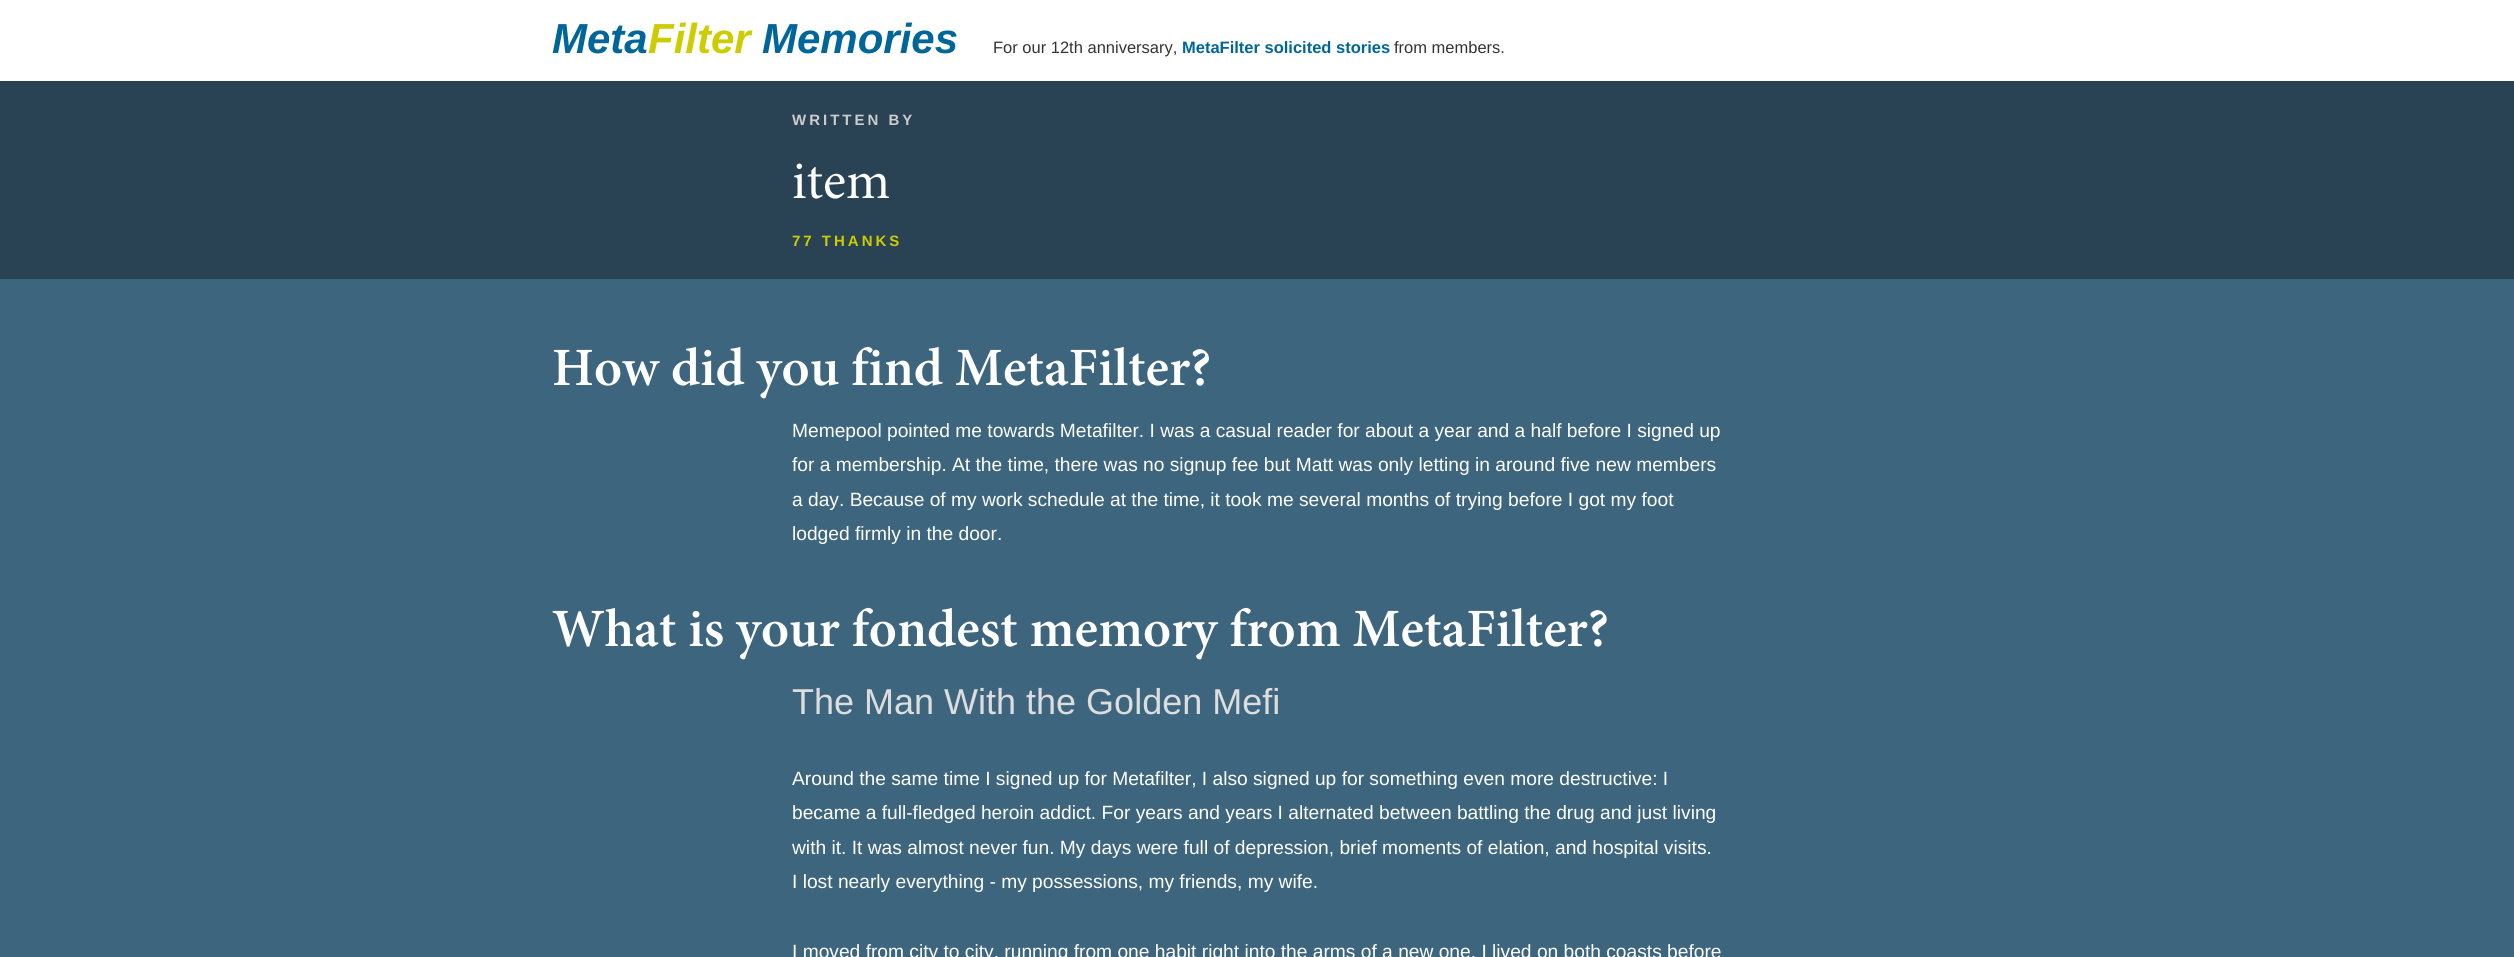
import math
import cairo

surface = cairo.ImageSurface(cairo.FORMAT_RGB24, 2514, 957)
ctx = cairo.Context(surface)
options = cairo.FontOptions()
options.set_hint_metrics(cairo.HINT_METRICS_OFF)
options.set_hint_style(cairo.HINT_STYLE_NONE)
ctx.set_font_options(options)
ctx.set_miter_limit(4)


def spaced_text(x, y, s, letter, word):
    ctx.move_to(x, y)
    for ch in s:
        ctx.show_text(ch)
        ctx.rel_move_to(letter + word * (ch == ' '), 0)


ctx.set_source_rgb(0.161, 0.263, 0.329)
ctx.paint()
ctx.set_source_rgb(1, 1, 1)
ctx.rectangle(0, 0, 2514, 81)
ctx.fill()
ctx.select_font_face("Liberation Sans", cairo.FONT_SLANT_ITALIC, cairo.FONT_WEIGHT_BOLD)
ctx.set_font_size(42)
ctx.set_source_rgb(0, 0.4, 0.6)
ctx.move_to(552, 53)
ctx.show_text("Meta")
ctx.set_source_rgb(0.8, 0.8, 0)
ctx.move_to(648, 53)
ctx.show_text("Filter")
ctx.set_source_rgb(0, 0.4, 0.6)
ctx.move_to(762, 53)
ctx.show_text("Memories")
ctx.select_font_face("Liberation Sans")
ctx.set_font_size(16.5)
ctx.set_source_rgb(0.2, 0.2, 0.2)
ctx.move_to(993, 53)
ctx.show_text("For our 12th anniversary,")
ctx.select_font_face("Liberation Sans", cairo.FONT_SLANT_NORMAL, cairo.FONT_WEIGHT_BOLD)
ctx.set_source_rgb(0, 0.4, 0.6)
ctx.move_to(1182, 53)
ctx.show_text("MetaFilter solicited stories")
ctx.select_font_face("Liberation Sans")
ctx.set_source_rgb(0.2, 0.2, 0.2)
ctx.move_to(1394, 53)
ctx.show_text("from members.")
ctx.select_font_face("Liberation Sans", cairo.FONT_SLANT_NORMAL, cairo.FONT_WEIGHT_BOLD)
ctx.set_font_size(15)
ctx.set_source_rgb(0.8, 0.8, 0.8)
spaced_text(792, 125, "WRITTEN BY", 3, 0)
ctx.select_font_face("Minion")
ctx.set_font_size(54)
ctx.set_source_rgb(1, 1, 1)
ctx.move_to(792, 198)
ctx.show_text("item")
ctx.select_font_face("Liberation Sans", cairo.FONT_SLANT_NORMAL, cairo.FONT_WEIGHT_BOLD)
ctx.set_font_size(15)
ctx.set_source_rgb(0.8, 0.8, 0)
spaced_text(792, 246, "77 THANKS", 3, 0)
ctx.set_source_rgb(0.239, 0.4, 0.494)
ctx.rectangle(0, 279, 2514, 678)
ctx.fill()
ctx.select_font_face("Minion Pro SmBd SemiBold")
ctx.set_font_size(54)
ctx.set_source_rgb(1, 1, 1)
ctx.move_to(552, 385)
ctx.show_text("How did you find MetaFilter?")
ctx.select_font_face("Liberation Sans")
ctx.set_font_size(19.2)
ctx.move_to(792, 437)
ctx.show_text("Memepool pointed me towards Metafilter. I was a casual reader for about a year and a half before I signed up")
ctx.move_to(792, 471)
ctx.show_text("for a membership. At the time, there was no signup fee but Matt was only letting in around five new members")
ctx.move_to(792, 506)
ctx.show_text("a day. Because of my work schedule at the time, it took me several months of trying before I got my foot")
ctx.move_to(792, 540)
ctx.show_text("lodged firmly in the door.")
ctx.select_font_face("Minion Pro SmBd SemiBold")
ctx.set_font_size(54)
ctx.move_to(552, 646)
ctx.show_text("What is your fondest memory from MetaFilter?")
ctx.select_font_face("Liberation Sans")
ctx.set_font_size(36)
ctx.set_source_rgb(0.867, 0.867, 0.867)
ctx.move_to(792, 714)
ctx.show_text("The Man With the Golden Mefi")
ctx.set_font_size(19.2)
ctx.set_source_rgb(1, 1, 1)
ctx.move_to(792, 785)
ctx.show_text("Around the same time I signed up for Metafilter, I also signed up for something even more destructive: I")
ctx.move_to(792, 819)
ctx.show_text("became a full-fledged heroin addict. For years and years I alternated between battling the drug and just living")
ctx.move_to(792, 854)
ctx.show_text("with it. It was almost never fun. My days were full of depression, brief moments of elation, and hospital visits.")
ctx.move_to(792, 888)
ctx.show_text("I lost nearly everything - my possessions, my friends, my wife.")
ctx.move_to(792, 958)
ctx.show_text("I moved from city to city, running from one habit right into the arms of a new one. I lived on both coasts before")
surface.write_to_png("page.png")
